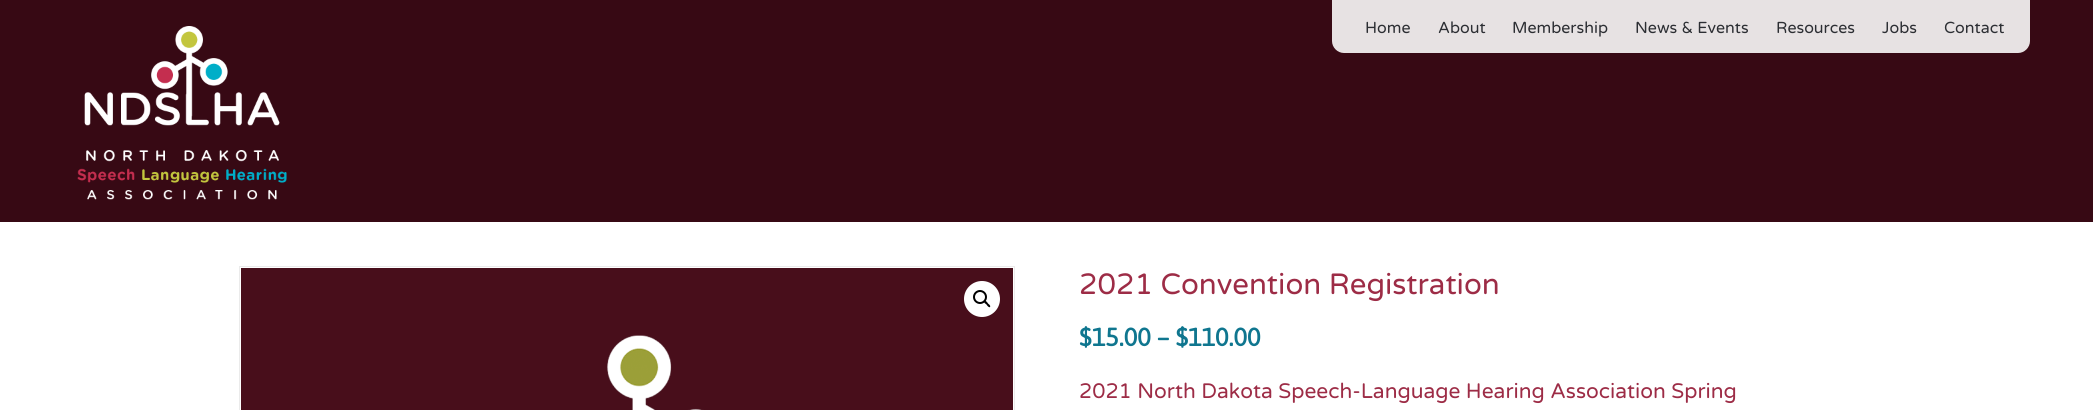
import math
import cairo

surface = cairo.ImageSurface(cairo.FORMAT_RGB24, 2093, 410)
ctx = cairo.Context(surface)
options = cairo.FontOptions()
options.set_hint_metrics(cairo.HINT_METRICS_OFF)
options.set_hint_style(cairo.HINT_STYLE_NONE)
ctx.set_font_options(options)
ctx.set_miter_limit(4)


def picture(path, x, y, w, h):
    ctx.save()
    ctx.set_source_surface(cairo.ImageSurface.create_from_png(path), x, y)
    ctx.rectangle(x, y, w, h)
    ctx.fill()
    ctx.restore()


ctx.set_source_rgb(1, 1, 1)
ctx.paint()
ctx.set_source_rgb(0.216, 0.039, 0.082)
ctx.rectangle(0, 0, 2093, 222)
ctx.fill()
picture("img1.png", 77, 26, 210, 174)
ctx.set_source_rgb(0.906, 0.886, 0.89)
ctx.new_path()
ctx.move_to(1332, 0)
ctx.line_to(2030, 0)
ctx.line_to(2030, 41)
ctx.curve_to(2030, 47.5, 2024.5, 53, 2018, 53)
ctx.line_to(1344, 53)
ctx.curve_to(1337.5, 53, 1332, 47.5, 1332, 41)
ctx.close_path()
ctx.fill()
ctx.select_font_face("Varela Round")
ctx.set_font_size(16)
ctx.set_source_rgb(0.173, 0.18, 0.2)
ctx.move_to(1365, 33)
ctx.show_text("Home")
ctx.move_to(1438, 33)
ctx.show_text("About")
ctx.move_to(1512, 33)
ctx.show_text("Membership")
ctx.move_to(1635, 33)
ctx.show_text("News & Events")
ctx.move_to(1776, 33)
ctx.show_text("Resources")
ctx.move_to(1882, 33)
ctx.show_text("Jobs")
ctx.move_to(1944, 33)
ctx.show_text("Contact")
ctx.rectangle(239.5, 266.5, 775, 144)
ctx.set_source_rgb(0.918, 0.918, 0.918)
ctx.set_line_width(1)
ctx.stroke()
picture("img2.png", 241, 268, 772, 142)
ctx.set_source_rgb(1, 1, 1)
ctx.arc(982, 299, 18, 0, 2 * math.pi)
ctx.fill()
ctx.arc(980, 297, 6, 0, 2 * math.pi)
ctx.set_source_rgb(0, 0, 0)
ctx.set_line_width(2)
ctx.stroke()
ctx.new_path()
ctx.move_to(984.5, 301)
ctx.curve_to(985.5, 300, 987.5, 302.5, 988, 303.5)
ctx.curve_to(988.5, 304, 991, 305.5, 990, 307)
ctx.curve_to(989, 308, 987, 305.5, 986.5, 304.5)
ctx.curve_to(986, 304, 983, 302.5, 984.5, 301)
ctx.close_path()
ctx.fill()
ctx.set_font_size(29.4)
ctx.set_source_rgb(0.616, 0.173, 0.275)
ctx.move_to(1079, 294)
ctx.show_text("2021 Convention Registration")
ctx.select_font_face("Asap", cairo.FONT_SLANT_NORMAL, cairo.FONT_WEIGHT_BOLD)
ctx.set_font_size(25.25)
ctx.set_source_rgb(0.059, 0.463, 0.561)
ctx.move_to(1079, 346)
ctx.show_text("$15.00 – $110.00")
ctx.select_font_face("Varela Round")
ctx.set_font_size(21)
ctx.set_source_rgb(0.616, 0.173, 0.275)
ctx.move_to(1079, 398)
ctx.show_text("2021 North Dakota Speech-Language Hearing Association Spring")
surface.write_to_png("page.png")
